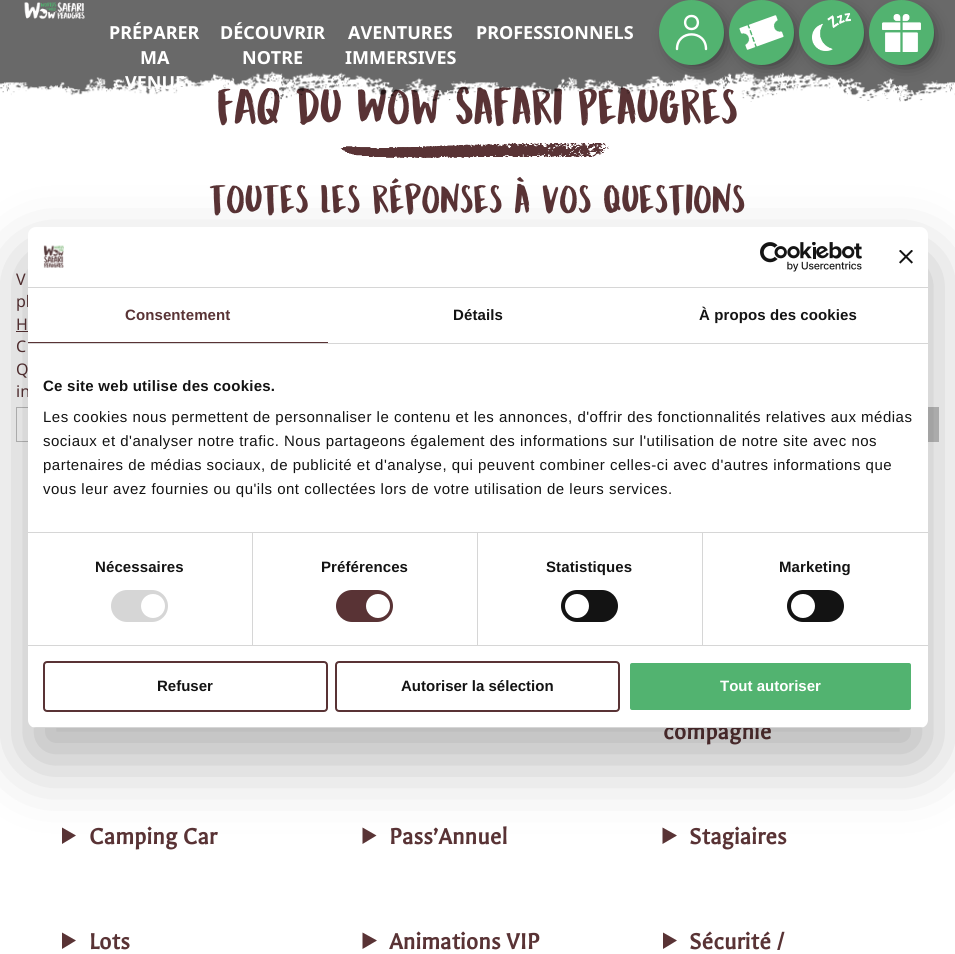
import math
import cairo

surface = cairo.ImageSurface(cairo.FORMAT_RGB24, 955, 954)
ctx = cairo.Context(surface)
options = cairo.FontOptions()
options.set_hint_metrics(cairo.HINT_METRICS_OFF)
options.set_hint_style(cairo.HINT_STYLE_NONE)
ctx.set_font_options(options)
ctx.set_miter_limit(4)


def spaced_text(x, y, s, letter, word):
    ctx.move_to(x, y)
    for ch in s:
        ctx.show_text(ch)
        ctx.rel_move_to(letter + word * (ch == ' '), 0)


def round_rect(x, y, w, h, r):
    ctx.new_sub_path()
    for i, (u, v) in enumerate([(x + w - r, y + h - r), (x + r, y + h - r), (x + r, y + r), (x + w - r, y + r)]):
        ctx.arc(u, v, r, i * math.pi / 2, (i + 1) * math.pi / 2)
    ctx.close_path()


def shadow(x, y, w, h, r, blur, alpha):
    ctx.push_group_with_content(cairo.CONTENT_ALPHA)
    ctx.set_operator(cairo.OPERATOR_SOURCE)
    for i in range(15, -16, -2):
        e = blur * i / 6
        if min(w, h) + 2 * e > 0:
            ctx.set_source_rgba(0, 0, 0, alpha * math.erfc((i - 1) / 8.5) / 2)
            round_rect(x - e, y - e, w + 2 * e, h + 2 * e, max(0, min(r + e + blur * .6, min(w, h) / 2 + e)))
            ctx.fill()
    ctx.mask(ctx.pop_group())


def picture(path, x, y, w, h):
    ctx.save()
    ctx.set_source_surface(cairo.ImageSurface.create_from_png(path), x, y)
    ctx.rectangle(x, y, w, h)
    ctx.fill()
    ctx.restore()


ctx.set_source_rgb(1, 1, 1)
ctx.paint()
ctx.set_source_rgb(0.412, 0.412, 0.412)
ctx.rectangle(0, 0, 955, 60)
ctx.fill()
picture("img1.png", 24, 2, 61, 18)
ctx.select_font_face("Noto Sans", cairo.FONT_SLANT_NORMAL, cairo.FONT_WEIGHT_BOLD)
ctx.set_font_size(18)
ctx.set_source_rgb(1, 1, 1)
ctx.move_to(109, 39)
ctx.show_text("PRÉPARER")
ctx.select_font_face("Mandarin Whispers")
ctx.set_font_size(50)
ctx.set_source_rgb(0.349, 0.2, 0.208)
ctx.move_to(217, 124)
ctx.show_text("FAQ du Wow Safari Peaugres")
picture("img5.png", 0, 60, 955, 42)
ctx.select_font_face("Noto Sans", cairo.FONT_SLANT_NORMAL, cairo.FONT_WEIGHT_BOLD)
ctx.set_font_size(18)
ctx.set_source_rgb(1, 1, 1)
ctx.move_to(140, 64)
ctx.show_text("MA")
ctx.move_to(125, 89)
ctx.show_text("VENUE")
ctx.move_to(220, 39)
ctx.show_text("DÉCOUVRIR")
ctx.move_to(242, 64)
ctx.show_text("NOTRE")
ctx.move_to(348, 39)
ctx.show_text("AVENTURES")
ctx.move_to(345, 64)
ctx.show_text("IMMERSIVES")
ctx.move_to(476, 39)
ctx.show_text("PROFESSIONNELS")
ctx.set_source_rgb(0, 0, 0)
shadow(676, 17, 41, 41, 20.5, 10, 1)
ctx.set_source_rgb(0.322, 0.702, 0.439)
ctx.arc(691.5, 32.5, 32.5, 0, 2 * math.pi)
ctx.fill()
ctx.new_path()
ctx.move_to(691.5, 29)
ctx.curve_to(700, 29, 700, 16, 691.5, 16)
ctx.curve_to(683, 16, 683, 29, 691.5, 29)
ctx.close_path()
ctx.move_to(706, 49)
ctx.curve_to(706, 29.5, 677, 29.5, 677, 49)
ctx.set_source_rgb(1, 1, 1)
ctx.set_line_width(2.4)
ctx.set_line_cap(cairo.LINE_CAP_ROUND)
ctx.set_line_join(cairo.LINE_JOIN_ROUND)
ctx.stroke()
ctx.set_source_rgb(0, 0, 0)
shadow(746, 17, 41, 41, 20.5, 10, 1)
ctx.set_source_rgb(0.322, 0.702, 0.439)
ctx.arc(761.5, 32.5, 32.5, 0, 2 * math.pi)
ctx.fill()
picture("img2.png", 739, 15, 45, 35)
ctx.set_source_rgb(0, 0, 0)
shadow(816, 17, 41, 41, 20.5, 10, 1)
ctx.set_source_rgb(0.322, 0.702, 0.439)
ctx.arc(831.5, 32.5, 32.5, 0, 2 * math.pi)
ctx.fill()
picture("img3.png", 812, 13, 39, 38)
ctx.set_source_rgb(0, 0, 0)
shadow(886, 17, 41, 41, 20.5, 10, 1)
ctx.set_source_rgb(0.322, 0.702, 0.439)
ctx.arc(901.5, 32.5, 32.5, 0, 2 * math.pi)
ctx.fill()
picture("img4.png", 882, 14, 39, 38)
picture("img6.png", 340, 143, 269, 15)
ctx.select_font_face("Mandarin Whispers")
ctx.set_font_size(40)
ctx.set_source_rgb(0.349, 0.2, 0.208)
ctx.move_to(209, 213)
ctx.show_text("toutes les réponses à vos questions")
ctx.select_font_face("Noto Sans")
ctx.set_font_size(16)
ctx.move_to(16, 285)
ctx.show_text("V")
ctx.move_to(16, 307)
ctx.show_text("pl")
ctx.move_to(16, 330)
ctx.show_text("H")
ctx.rectangle(16, 331, 12, 1)
ctx.fill()
ctx.move_to(16, 352)
ctx.show_text("C")
ctx.move_to(16, 375)
ctx.show_text("Q")
ctx.move_to(16, 397)
ctx.show_text("in")
ctx.rectangle(16.5, 407.5, 737, 34)
ctx.set_source_rgb(0.753, 0.753, 0.753)
ctx.set_line_width(1)
ctx.set_line_cap(cairo.LINE_CAP_BUTT)
ctx.set_line_join(cairo.LINE_JOIN_MITER)
ctx.stroke()
ctx.rectangle(928, 407, 11, 35)
ctx.fill()
ctx.select_font_face("Galdeano", cairo.FONT_SLANT_NORMAL, cairo.FONT_WEIGHT_BOLD)
ctx.set_font_size(25)
ctx.set_source_rgb(0.349, 0.2, 0.208)
ctx.move_to(663, 739)
ctx.show_text("compagnie")
ctx.new_path()
ctx.move_to(62, 827.5)
ctx.line_to(76, 835.5)
ctx.line_to(62, 844)
ctx.close_path()
ctx.fill()
ctx.move_to(89, 844)
ctx.show_text("Camping Car")
ctx.new_path()
ctx.move_to(362.5, 827.5)
ctx.line_to(376.5, 835.5)
ctx.line_to(362.5, 844)
ctx.close_path()
ctx.fill()
ctx.move_to(389, 844)
ctx.show_text("Pass’Annuel")
ctx.new_path()
ctx.move_to(662.5, 827.5)
ctx.line_to(677, 835.5)
ctx.line_to(662.5, 844)
ctx.close_path()
ctx.fill()
ctx.move_to(689, 844)
ctx.show_text("Stagiaires")
ctx.new_path()
ctx.move_to(62, 932.5)
ctx.line_to(76, 940.5)
ctx.line_to(62, 949)
ctx.close_path()
ctx.fill()
ctx.move_to(89, 949)
ctx.show_text("Lots")
ctx.new_path()
ctx.move_to(362.5, 932.5)
ctx.line_to(377, 940.5)
ctx.line_to(362.5, 949)
ctx.close_path()
ctx.fill()
ctx.move_to(389, 949)
ctx.show_text("Animations VIP")
ctx.new_path()
ctx.move_to(663, 932.5)
ctx.line_to(677, 940.5)
ctx.line_to(663, 949)
ctx.close_path()
ctx.fill()
ctx.move_to(689, 949)
ctx.show_text("Sécurité /")
ctx.set_source_rgb(0, 0, 0)
shadow(28, 259, 900, 501, 8, 34, 0.3)
ctx.set_source_rgb(1, 1, 1)
round_rect(28, 227, 900, 501, 8)
ctx.fill()
ctx.set_source_rgb(0.839, 0.839, 0.839)
ctx.rectangle(28, 287, 900, 1)
ctx.fill()
picture("img7.png", 43, 245, 21, 23)
picture("img8.png", 760, 242, 102, 30)
picture("img9.png", 899, 250, 14, 14)
ctx.rectangle(28, 343, 900, 1)
ctx.fill()
ctx.set_source_rgb(0.349, 0.2, 0.208)
ctx.rectangle(28, 342, 300, 1)
ctx.fill()
ctx.select_font_face("Liberation Sans", cairo.FONT_SLANT_NORMAL, cairo.FONT_WEIGHT_BOLD)
ctx.set_font_size(15)
spaced_text(125, 320, "Consentement", 0.1, 0)
ctx.set_source_rgb(0.078, 0.078, 0.078)
spaced_text(453, 320, "Détails", 0.1, 0)
spaced_text(699, 320, "À propos des cookies", 0.1, 0)
ctx.set_source_rgb(0.839, 0.839, 0.839)
ctx.rectangle(28, 532, 900, 1)
ctx.fill()
ctx.set_source_rgb(0.078, 0.078, 0.078)
spaced_text(43, 391, "Ce site web utilise des cookies.", 0.25, 0)
ctx.select_font_face("Liberation Sans")
spaced_text(43, 422, "Les cookies nous permettent de personnaliser le contenu et les annonces, d'offrir des fonctionnalités relatives aux médias", 0.5, 0)
spaced_text(43, 446, "sociaux et d'analyser notre trafic. Nous partageons également des informations sur l'utilisation de notre site avec nos", 0.5, 0)
spaced_text(43, 470, "partenaires de médias sociaux, de publicité et d'analyse, qui peuvent combiner celles-ci avec d'autres informations que", 0.5, 0)
spaced_text(43, 494, "vous leur avez fournies ou qu'ils ont collectées lors de votre utilisation de leurs services.", 0.5, 0)
ctx.set_source_rgb(0.839, 0.839, 0.839)
ctx.rectangle(28, 645, 900, 1)
ctx.fill()
ctx.rectangle(252, 533, 1, 112)
ctx.fill()
ctx.select_font_face("Liberation Sans", cairo.FONT_SLANT_NORMAL, cairo.FONT_WEIGHT_BOLD)
ctx.set_source_rgb(0.078, 0.078, 0.078)
spaced_text(95, 572, "Nécessaires", 0.1, 0)
ctx.set_source_rgb(0.839, 0.839, 0.839)
round_rect(111, 590, 57, 32, 16)
ctx.fill()
ctx.set_source_rgb(1, 1, 1)
ctx.arc(153, 606, 12, 0, 2 * math.pi)
ctx.fill()
ctx.set_source_rgb(0.839, 0.839, 0.839)
ctx.rectangle(477, 533, 1, 112)
ctx.fill()
ctx.set_source_rgb(0.078, 0.078, 0.078)
spaced_text(321, 572, "Préférences", 0.1, 0)
ctx.set_source_rgb(0.349, 0.2, 0.208)
round_rect(336, 590, 57, 32, 16)
ctx.fill()
ctx.set_source_rgb(1, 1, 1)
ctx.arc(378, 606, 12, 0, 2 * math.pi)
ctx.fill()
ctx.set_source_rgb(0.839, 0.839, 0.839)
ctx.rectangle(702, 533, 1, 112)
ctx.fill()
ctx.set_source_rgb(0.078, 0.078, 0.078)
spaced_text(546, 572, "Statistiques", 0.1, 0)
round_rect(561, 590, 57, 32, 16)
ctx.fill()
ctx.set_source_rgb(1, 1, 1)
ctx.arc(577, 606, 12, 0, 2 * math.pi)
ctx.fill()
ctx.set_source_rgb(0.078, 0.078, 0.078)
spaced_text(779, 572, "Marketing", 0.1, 0)
round_rect(787, 590, 57, 32, 16)
ctx.fill()
ctx.set_source_rgb(1, 1, 1)
ctx.arc(803, 606, 12, 0, 2 * math.pi)
ctx.fill()
ctx.save()
round_rect(28, 227, 900, 501, 8)
ctx.clip()
ctx.set_source_rgb(0.839, 0.839, 0.839)
ctx.rectangle(28, 727, 900, 1)
ctx.fill()
ctx.restore()
round_rect(44, 662, 283, 49, 3)
ctx.set_source_rgb(0.349, 0.2, 0.208)
ctx.set_line_width(2)
ctx.stroke()
ctx.set_source_rgb(0.078, 0.078, 0.078)
ctx.move_to(157, 691)
ctx.show_text("Refuser")
round_rect(336, 662, 283, 49, 3)
ctx.set_source_rgb(0.349, 0.2, 0.208)
ctx.stroke()
ctx.set_source_rgb(0.078, 0.078, 0.078)
ctx.move_to(401, 691)
ctx.show_text("Autoriser la sélection")
ctx.set_source_rgb(0.322, 0.702, 0.439)
round_rect(629, 662, 283, 49, 3)
ctx.fill_preserve()
ctx.set_source_rgb(1, 1, 1)
ctx.stroke()
ctx.move_to(720, 691)
ctx.show_text("Tout autoriser")
surface.write_to_png("page.png")
